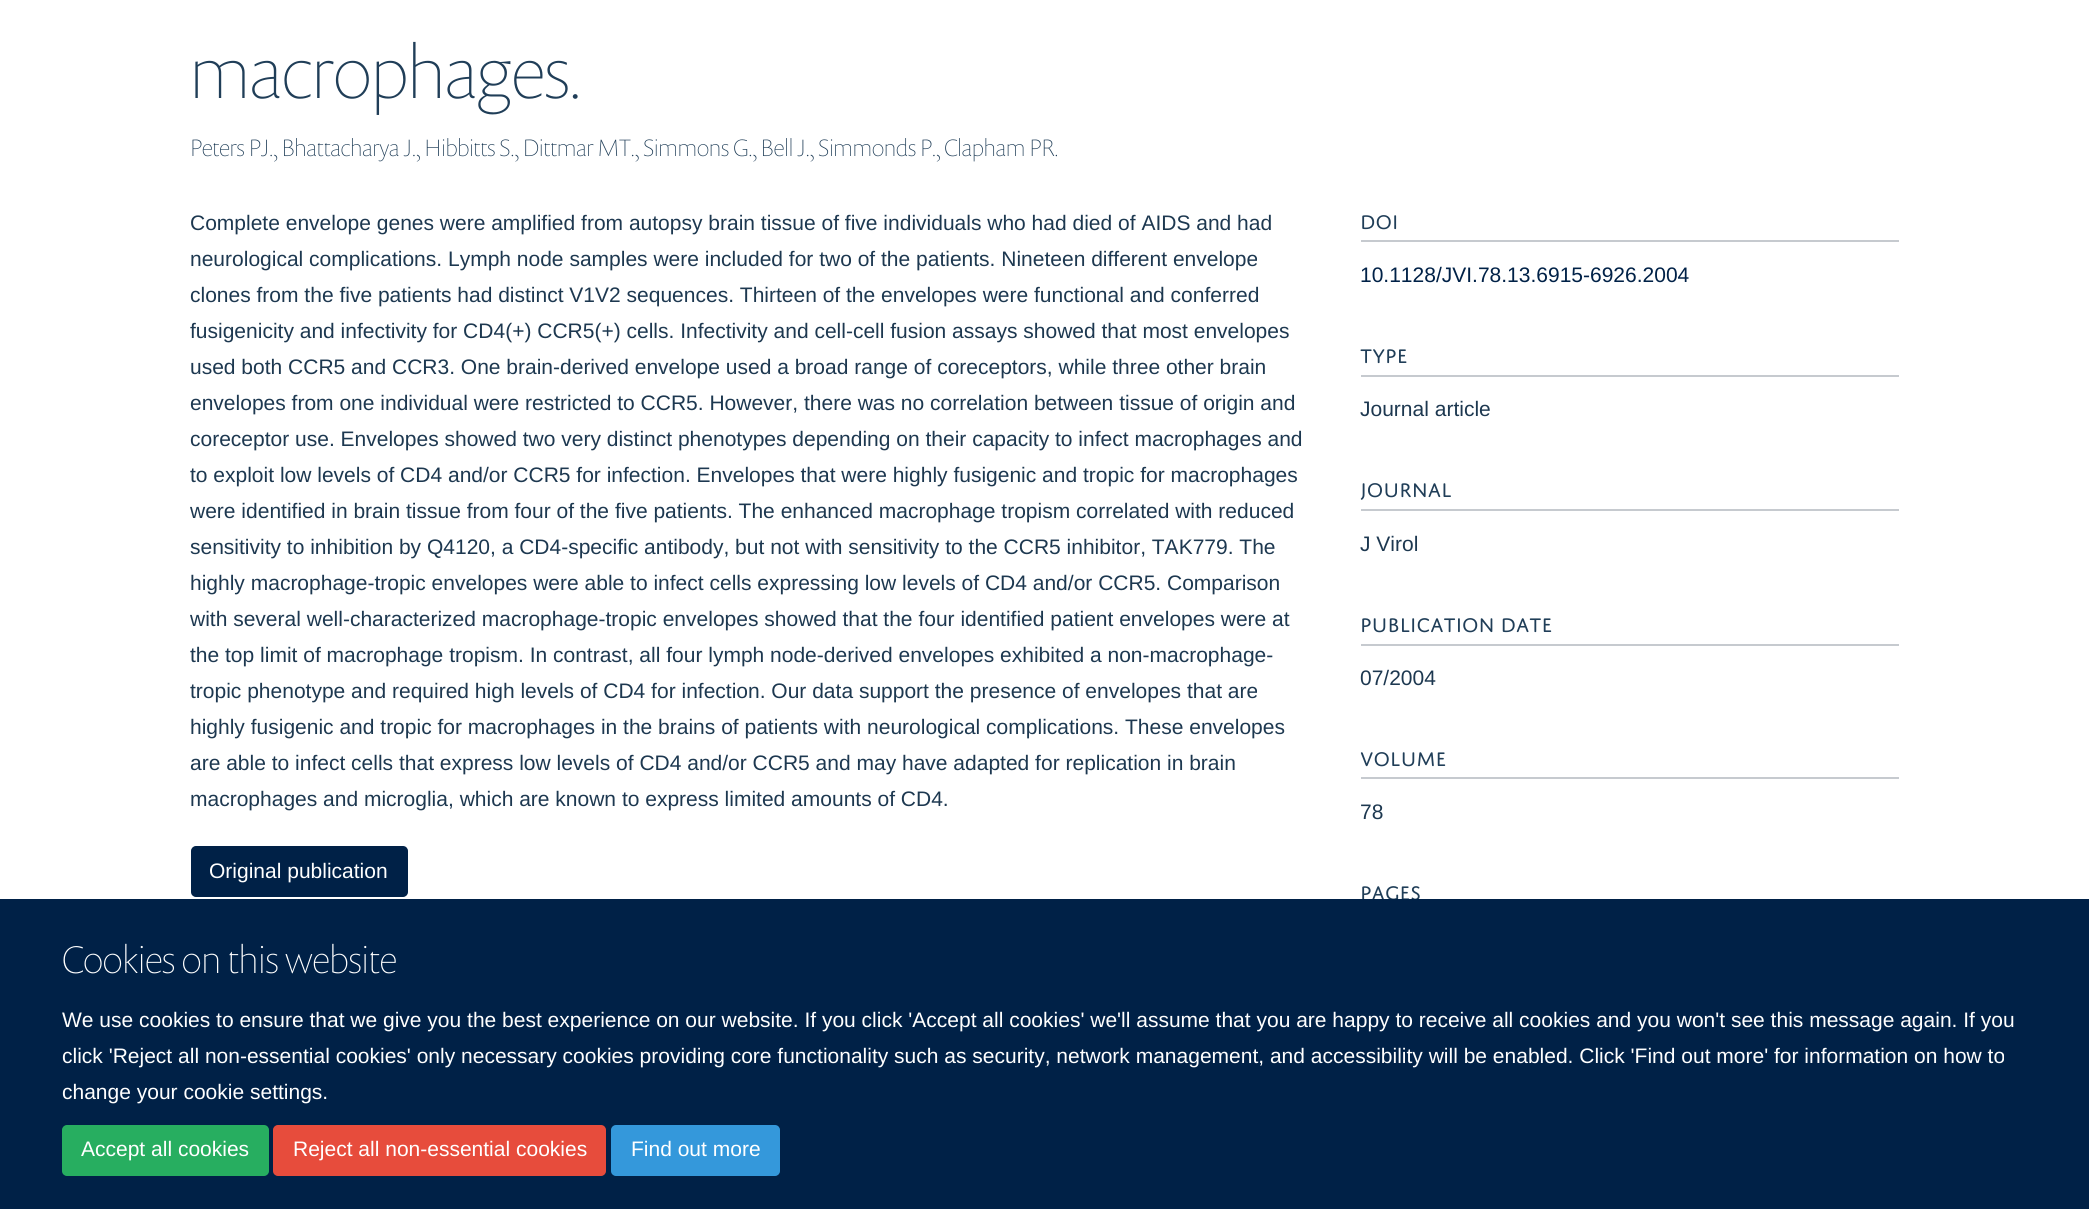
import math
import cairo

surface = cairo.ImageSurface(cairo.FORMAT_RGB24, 2089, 1209)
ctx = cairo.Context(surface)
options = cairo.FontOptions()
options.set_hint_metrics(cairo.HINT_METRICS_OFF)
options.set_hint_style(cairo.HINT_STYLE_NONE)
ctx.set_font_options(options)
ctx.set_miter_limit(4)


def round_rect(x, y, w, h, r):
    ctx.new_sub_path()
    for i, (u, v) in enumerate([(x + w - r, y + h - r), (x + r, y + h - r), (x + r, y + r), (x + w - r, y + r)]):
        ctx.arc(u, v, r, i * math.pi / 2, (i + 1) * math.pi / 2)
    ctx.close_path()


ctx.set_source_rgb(1, 1, 1)
ctx.paint()
ctx.select_font_face("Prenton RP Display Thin")
ctx.set_font_size(75)
ctx.set_source_rgb(0.125, 0.243, 0.345)
ctx.move_to(190, 98)
ctx.show_text("macrophages.")
ctx.set_font_size(24)
ctx.move_to(190, 156)
ctx.show_text("Peters PJ., Bhattacharya J., Hibbitts S., Dittmar MT., Simmons G., Bell J., Simmonds P., Clapham PR.")
ctx.select_font_face("Liberation Sans")
ctx.set_font_size(21)
ctx.set_source_rgb(0.114, 0.22, 0.314)
ctx.move_to(190, 230)
ctx.show_text("Complete envelope genes were amplified from autopsy brain tissue of five individuals who had died of AIDS and had")
ctx.move_to(190, 266)
ctx.show_text("neurological complications. Lymph node samples were included for two of the patients. Nineteen different envelope")
ctx.move_to(190, 302)
ctx.show_text("clones from the five patients had distinct V1V2 sequences. Thirteen of the envelopes were functional and conferred")
ctx.move_to(190, 338)
ctx.show_text("fusigenicity and infectivity for CD4(+) CCR5(+) cells. Infectivity and cell-cell fusion assays showed that most envelopes")
ctx.move_to(190, 374)
ctx.show_text("used both CCR5 and CCR3. One brain-derived envelope used a broad range of coreceptors, while three other brain")
ctx.move_to(190, 410)
ctx.show_text("envelopes from one individual were restricted to CCR5. However, there was no correlation between tissue of origin and")
ctx.move_to(190, 446)
ctx.show_text("coreceptor use. Envelopes showed two very distinct phenotypes depending on their capacity to infect macrophages and")
ctx.move_to(190, 482)
ctx.show_text("to exploit low levels of CD4 and/or CCR5 for infection. Envelopes that were highly fusigenic and tropic for macrophages")
ctx.move_to(190, 518)
ctx.show_text("were identified in brain tissue from four of the five patients. The enhanced macrophage tropism correlated with reduced")
ctx.move_to(190, 554)
ctx.show_text("sensitivity to inhibition by Q4120, a CD4-specific antibody, but not with sensitivity to the CCR5 inhibitor, TAK779. The")
ctx.move_to(190, 590)
ctx.show_text("highly macrophage-tropic envelopes were able to infect cells expressing low levels of CD4 and/or CCR5. Comparison")
ctx.move_to(190, 626)
ctx.show_text("with several well-characterized macrophage-tropic envelopes showed that the four identified patient envelopes were at")
ctx.move_to(190, 662)
ctx.show_text("the top limit of macrophage tropism. In contrast, all four lymph node-derived envelopes exhibited a non-macrophage-")
ctx.move_to(190, 698)
ctx.show_text("tropic phenotype and required high levels of CD4 for infection. Our data support the presence of envelopes that are")
ctx.move_to(190, 734)
ctx.show_text("highly fusigenic and tropic for macrophages in the brains of patients with neurological complications. These envelopes")
ctx.move_to(190, 770)
ctx.show_text("are able to infect cells that express low levels of CD4 and/or CCR5 and may have adapted for replication in brain")
ctx.move_to(190, 806)
ctx.show_text("macrophages and microglia, which are known to express limited amounts of CD4.")
ctx.set_source_rgb(0, 0.129, 0.278)
round_rect(192, 847, 215, 49, 4)
ctx.fill_preserve()
ctx.stroke()
ctx.set_source_rgb(1, 1, 1)
ctx.move_to(209, 878)
ctx.show_text("Original publication")
ctx.set_source_rgb(0.776, 0.792, 0.812)
ctx.rectangle(1361, 240, 538, 2)
ctx.fill()
ctx.select_font_face("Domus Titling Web")
ctx.set_source_rgb(0.125, 0.243, 0.345)
ctx.move_to(1360, 229)
ctx.show_text("DOI")
ctx.select_font_face("Liberation Sans")
ctx.set_source_rgb(0, 0.129, 0.278)
ctx.move_to(1360, 282)
ctx.show_text("10.1128/JVI.78.13.6915-6926.2004")
ctx.set_source_rgb(0.776, 0.792, 0.812)
ctx.rectangle(1361, 375, 538, 2)
ctx.fill()
ctx.select_font_face("Domus Titling Web")
ctx.set_source_rgb(0.125, 0.243, 0.345)
ctx.move_to(1360, 363)
ctx.show_text("TYPE")
ctx.select_font_face("Liberation Sans")
ctx.set_source_rgb(0.114, 0.22, 0.314)
ctx.move_to(1360, 416)
ctx.show_text("Journal article")
ctx.set_source_rgb(0.776, 0.792, 0.812)
ctx.rectangle(1361, 509, 538, 2)
ctx.fill()
ctx.select_font_face("Domus Titling Web")
ctx.set_source_rgb(0.125, 0.243, 0.345)
ctx.move_to(1360, 497)
ctx.show_text("JOURNAL")
ctx.select_font_face("Liberation Sans")
ctx.set_source_rgb(0.114, 0.22, 0.314)
ctx.move_to(1360, 551)
ctx.show_text("J Virol")
ctx.set_source_rgb(0.776, 0.792, 0.812)
ctx.rectangle(1361, 644, 538, 2)
ctx.fill()
ctx.select_font_face("Domus Titling Web")
ctx.set_source_rgb(0.125, 0.243, 0.345)
ctx.move_to(1360, 632)
ctx.show_text("PUBLICATION DATE")
ctx.select_font_face("Liberation Sans")
ctx.set_source_rgb(0.114, 0.22, 0.314)
ctx.move_to(1360, 685)
ctx.show_text("07/2004")
ctx.set_source_rgb(0.776, 0.792, 0.812)
ctx.rectangle(1361, 777, 538, 2)
ctx.fill()
ctx.select_font_face("Domus Titling Web")
ctx.set_source_rgb(0.125, 0.243, 0.345)
ctx.move_to(1360, 766)
ctx.show_text("VOLUME")
ctx.select_font_face("Liberation Sans")
ctx.set_source_rgb(0.114, 0.22, 0.314)
ctx.move_to(1360, 819)
ctx.show_text("78")
ctx.select_font_face("Domus Titling Web")
ctx.set_source_rgb(0.125, 0.243, 0.345)
ctx.move_to(1360, 900)
ctx.show_text("PAGES")
ctx.set_source_rgb(0, 0.129, 0.278)
ctx.rectangle(0, 899, 2089, 310)
ctx.fill()
ctx.select_font_face("Prenton RP Display Thin")
ctx.set_font_size(39)
ctx.set_source_rgb(1, 1, 1)
ctx.move_to(62, 973)
ctx.show_text("Cookies on this website")
ctx.select_font_face("Liberation Sans")
ctx.set_font_size(21)
ctx.move_to(62, 1027)
ctx.show_text("We use cookies to ensure that we give you the best experience on our website. If you click 'Accept all cookies' we'll assume that you are happy to receive all cookies and you won't see this message again. If you")
ctx.move_to(62, 1063)
ctx.show_text("click 'Reject all non-essential cookies' only necessary cookies providing core functionality such as security, network management, and accessibility will be enabled. Click 'Find out more' for information on how to")
ctx.move_to(62, 1099)
ctx.show_text("change your cookie settings.")
ctx.set_source_rgb(0.153, 0.682, 0.376)
round_rect(63, 1126, 205, 49, 4)
ctx.fill_preserve()
ctx.stroke()
ctx.set_source_rgb(1, 1, 1)
ctx.move_to(81, 1156)
ctx.show_text("Accept all cookies")
ctx.set_source_rgb(0.906, 0.298, 0.235)
round_rect(274, 1126, 331, 49, 4)
ctx.fill_preserve()
ctx.stroke()
ctx.set_source_rgb(1, 1, 1)
ctx.move_to(293, 1156)
ctx.show_text("Reject all non-essential cookies")
ctx.set_source_rgb(0.204, 0.596, 0.859)
round_rect(612, 1126, 167, 49, 4)
ctx.fill_preserve()
ctx.stroke()
ctx.set_source_rgb(1, 1, 1)
ctx.move_to(631, 1156)
ctx.show_text("Find out more")
surface.write_to_png("page.png")
